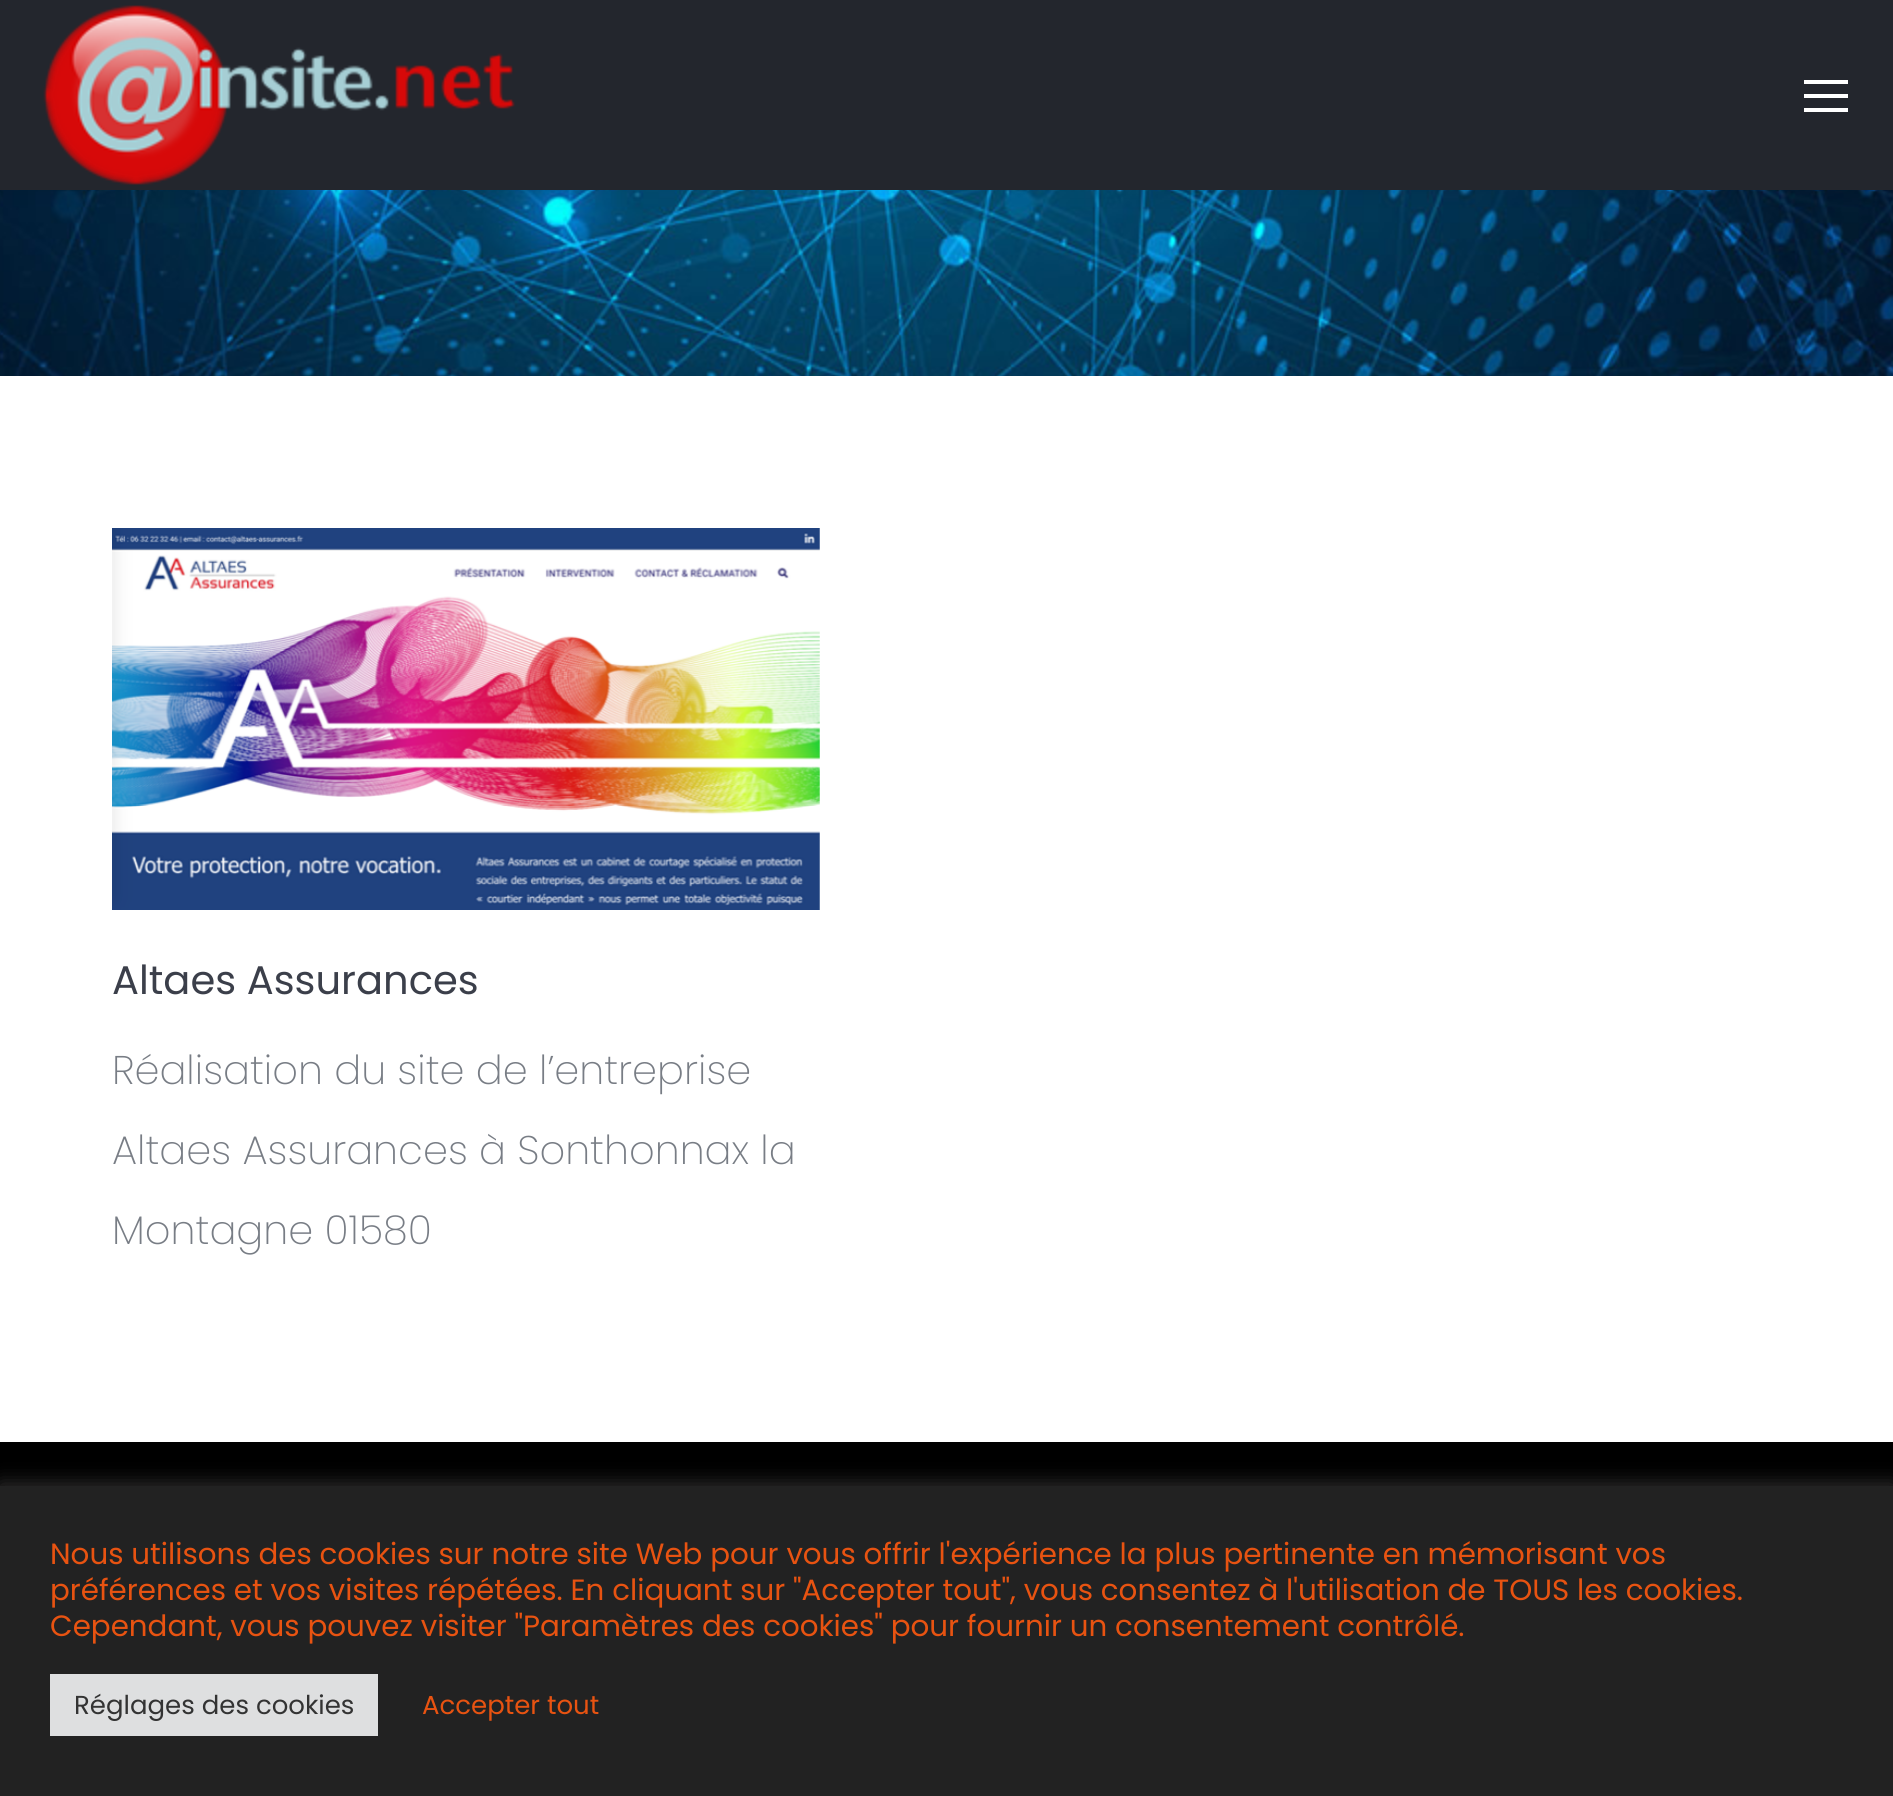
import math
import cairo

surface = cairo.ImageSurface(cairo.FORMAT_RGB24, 1893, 1796)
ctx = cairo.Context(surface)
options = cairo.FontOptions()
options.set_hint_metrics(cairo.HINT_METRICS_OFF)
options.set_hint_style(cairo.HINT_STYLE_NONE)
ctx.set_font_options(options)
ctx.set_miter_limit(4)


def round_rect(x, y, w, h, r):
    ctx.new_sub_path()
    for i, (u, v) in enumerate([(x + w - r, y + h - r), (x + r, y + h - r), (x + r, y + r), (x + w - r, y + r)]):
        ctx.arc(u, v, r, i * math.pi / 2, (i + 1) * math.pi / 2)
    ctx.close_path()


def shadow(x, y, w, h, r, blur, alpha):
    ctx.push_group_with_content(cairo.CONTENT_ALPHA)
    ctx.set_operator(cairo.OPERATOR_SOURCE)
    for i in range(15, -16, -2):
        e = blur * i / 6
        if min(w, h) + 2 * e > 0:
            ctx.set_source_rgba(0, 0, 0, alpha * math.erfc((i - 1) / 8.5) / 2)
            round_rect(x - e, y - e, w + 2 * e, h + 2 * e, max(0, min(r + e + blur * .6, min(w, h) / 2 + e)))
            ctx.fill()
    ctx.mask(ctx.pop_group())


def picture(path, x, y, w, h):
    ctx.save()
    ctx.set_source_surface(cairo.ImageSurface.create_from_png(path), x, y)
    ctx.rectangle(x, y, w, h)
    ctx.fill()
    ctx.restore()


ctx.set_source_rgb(1, 1, 1)
ctx.paint()
picture("img2.png", 0, 190, 1893, 186)
ctx.set_source_rgb(0, 0, 0)
shadow(-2, -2, 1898, 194, 0, 15, 0.07)
ctx.set_source_rgb(0.137, 0.149, 0.176)
ctx.rectangle(0, 0, 1893, 190)
ctx.fill()
picture("img1.png", 43, 5, 472, 180)
ctx.set_source_rgb(1, 1, 1)
ctx.rectangle(1804, 80, 44, 4)
ctx.fill()
ctx.rectangle(1804, 94, 44, 4)
ctx.fill()
ctx.rectangle(1804, 108, 44, 4)
ctx.fill()
picture("img3.png", 112, 528, 708, 382)
ctx.select_font_face("Poppins")
ctx.set_font_size(40)
ctx.set_source_rgb(0.231, 0.247, 0.29)
ctx.move_to(112, 994)
ctx.show_text("Altaes Assurances")
ctx.select_font_face("Poppins ExtraLight")
ctx.set_source_rgb(0.471, 0.49, 0.522)
ctx.move_to(112, 1084)
ctx.show_text("Réalisation du site de l’entreprise")
ctx.move_to(112, 1164)
ctx.show_text("Altaes Assurances à Sonthonnax la")
ctx.move_to(112, 1244)
ctx.show_text("Montagne 01580")
ctx.set_source_rgb(0, 0, 0)
ctx.rectangle(0, 1442, 1893, 44)
ctx.fill()
ctx.set_source_rgb(0.675, 0.671, 0.671)
shadow(0, 1484, 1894, 310, 0, 10, 0.3)
ctx.set_source_rgb(0.133, 0.133, 0.133)
ctx.rectangle(0, 1486, 1893, 310)
ctx.fill()
ctx.select_font_face("Poppins")
ctx.set_font_size(29.33)
ctx.set_source_rgb(0.91, 0.325, 0.067)
ctx.move_to(50, 1564)
ctx.show_text("Nous utilisons des cookies sur notre site Web pour vous offrir l'expérience la plus pertinente en mémorisant vos")
ctx.move_to(50, 1600)
ctx.show_text("préférences et vos visites répétées. En cliquant sur \"Accepter tout\", vous consentez à l'utilisation de TOUS les cookies.")
ctx.move_to(50, 1636)
ctx.show_text("Cependant, vous pouvez visiter \"Paramètres des cookies\" pour fournir un consentement contrôlé.")
ctx.set_source_rgb(0.871, 0.875, 0.878)
ctx.rectangle(50, 1674, 328, 62)
ctx.fill()
ctx.set_font_size(26)
ctx.set_source_rgb(0.2, 0.2, 0.2)
ctx.move_to(74, 1714)
ctx.show_text("Réglages des cookies")
ctx.set_source_rgb(0.91, 0.325, 0.067)
ctx.move_to(422, 1714)
ctx.show_text("Accepter tout")
surface.write_to_png("page.png")
